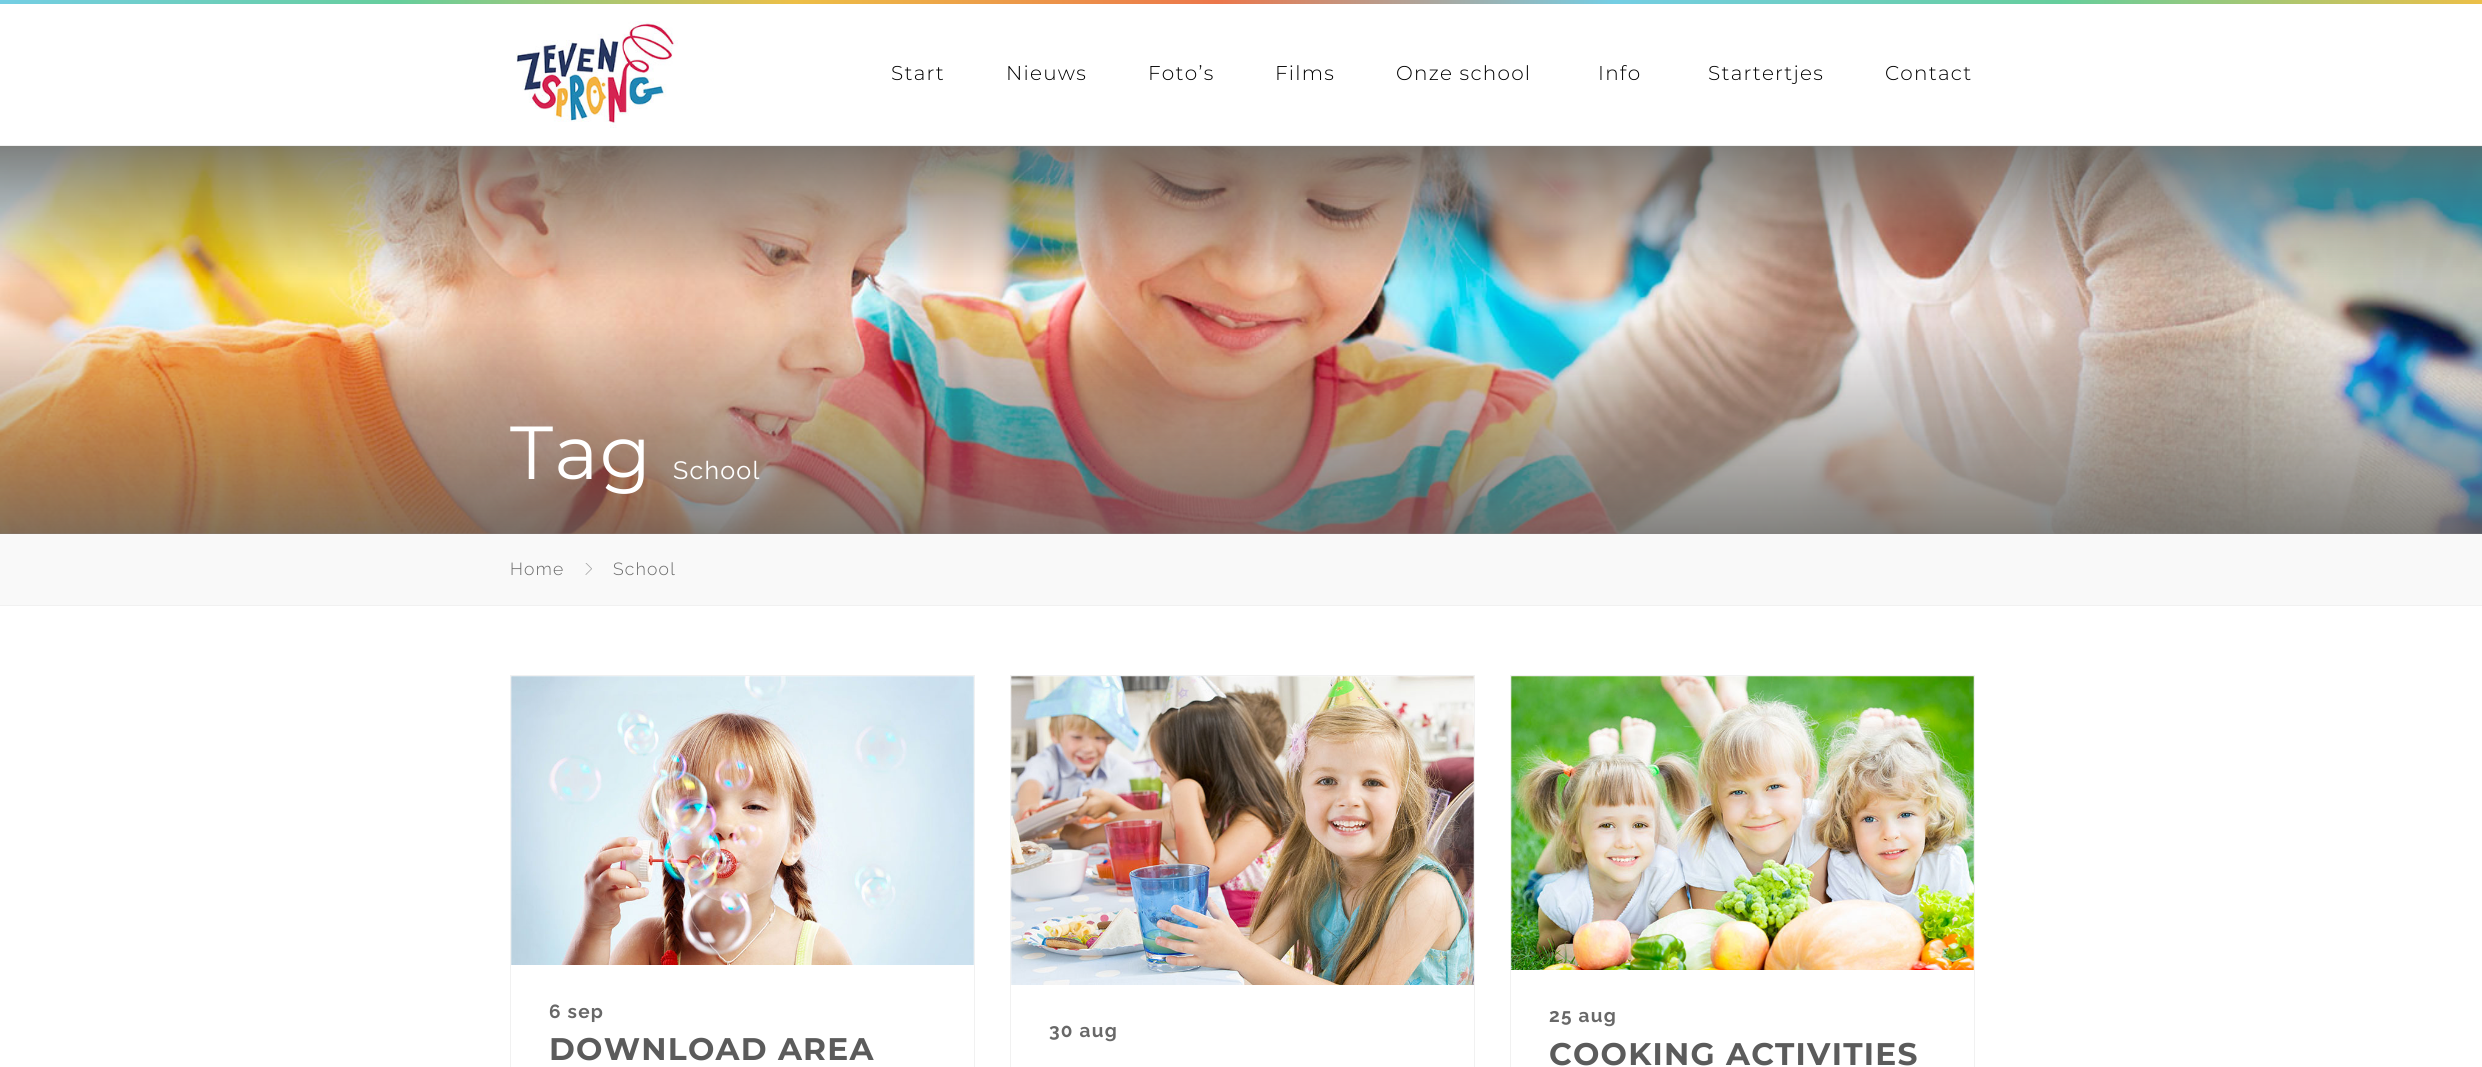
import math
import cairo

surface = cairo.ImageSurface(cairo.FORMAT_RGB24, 2482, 1067)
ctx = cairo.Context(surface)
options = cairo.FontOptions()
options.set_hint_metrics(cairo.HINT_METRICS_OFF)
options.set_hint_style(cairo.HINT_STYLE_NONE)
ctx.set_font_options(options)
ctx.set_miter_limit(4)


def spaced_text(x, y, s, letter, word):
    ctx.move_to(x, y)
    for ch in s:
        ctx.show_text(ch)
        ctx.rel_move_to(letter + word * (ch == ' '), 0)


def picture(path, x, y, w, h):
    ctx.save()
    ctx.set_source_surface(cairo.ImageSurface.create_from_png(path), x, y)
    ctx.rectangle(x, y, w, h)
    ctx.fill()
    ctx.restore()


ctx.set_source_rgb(1, 1, 1)
ctx.paint()
ctx.set_source_rgb(0.945, 0.945, 0.945)
ctx.rectangle(0, 145, 2482, 1)
ctx.fill()
gradient = cairo.LinearGradient(0, 1.9, 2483, 1.9)
gradient.add_color_stop_rgba(0, 0.455, 0.808, 0.894, 1)
gradient.add_color_stop_rgba(0.16, 0.4, 0.808, 0.612, 1)
gradient.add_color_stop_rgba(0.32, 0.929, 0.749, 0.278, 1)
gradient.add_color_stop_rgba(0.49, 0.925, 0.467, 0.294, 1)
gradient.add_color_stop_rgba(0.65, 0.455, 0.808, 0.894, 1)
gradient.add_color_stop_rgba(0.83, 0.4, 0.808, 0.612, 1)
gradient.add_color_stop_rgba(1, 0.929, 0.749, 0.278, 1)
ctx.set_source(gradient)
ctx.rectangle(0, 0, 2482, 4)
ctx.fill()
picture("img1.png", 516, 21, 162, 107)
ctx.select_font_face("Montserrat Light")
ctx.set_font_size(20)
ctx.set_source_rgb(0, 0, 0)
spaced_text(891, 80, "Start", 1.25, 0)
spaced_text(1006, 80, "Nieuws", 1.25, 0)
spaced_text(1148, 80, "Foto’s", 1.25, 0)
spaced_text(1275, 80, "Films", 1.25, 0)
spaced_text(1396, 80, "Onze school", 1.25, 0)
spaced_text(1598, 80, "Info", 1.25, 0)
spaced_text(1708, 80, "Startertjes", 1.25, 0)
spaced_text(1885, 80, "Contact", 1.25, 0)
picture("img2.png", 0, 146, 2482, 388)
gradient = cairo.LinearGradient(1241, 146, 1241, 534)
gradient.add_color_stop_rgba(0, 0.396, 0.392, 0.376, 0.8)
gradient.add_color_stop_rgba(0.35, 0.396, 0.392, 0.376, 0)
gradient.add_color_stop_rgba(0.45, 0.396, 0.392, 0.376, 0)
gradient.add_color_stop_rgba(1, 0.396, 0.392, 0.376, 0.8)
ctx.set_source(gradient)
ctx.rectangle(0, 146, 2482, 388)
ctx.fill()
ctx.select_font_face("Montserrat")
ctx.set_font_size(75)
ctx.set_source_rgb(1, 1, 1)
spaced_text(510, 479, "Tag", 1.25, 0)
ctx.select_font_face("Raleway")
ctx.set_font_size(25)
spaced_text(673, 479, "School", 1.25, 0)
ctx.set_source_rgb(0.976, 0.976, 0.976)
ctx.rectangle(0, 534, 2482, 71)
ctx.fill()
ctx.set_source_rgb(0.945, 0.945, 0.945)
ctx.rectangle(0, 605, 2482, 1)
ctx.fill()
ctx.select_font_face("Raleway Light")
ctx.set_font_size(17.5)
ctx.set_source_rgb(0.408, 0.408, 0.408)
spaced_text(510, 575, "Home", 1.25, 0)
picture("img3.png", 585, 563, 7, 12)
spaced_text(613, 575, "School", 1.25, 0)
ctx.rectangle(510.5, 675.5, 464, 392)
ctx.set_source_rgb(0.945, 0.945, 0.945)
ctx.set_line_width(1)
ctx.stroke()
picture("img4.png", 511, 676, 463, 289)
ctx.select_font_face("Raleway", cairo.FONT_SLANT_NORMAL, cairo.FONT_WEIGHT_BOLD)
ctx.set_font_size(19)
ctx.set_source_rgb(0.408, 0.408, 0.408)
spaced_text(549, 1018, "6 sep", 1.25, 0)
ctx.select_font_face("Montserrat", cairo.FONT_SLANT_NORMAL, cairo.FONT_WEIGHT_BOLD)
ctx.set_font_size(31.25)
ctx.set_source_rgb(0.357, 0.357, 0.357)
spaced_text(549, 1060, "DOWNLOAD AREA", 1.25, 0)
ctx.rectangle(1010.5, 675.5, 464, 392)
ctx.set_source_rgb(0.945, 0.945, 0.945)
ctx.stroke()
picture("img5.png", 1011, 676, 463, 309)
ctx.select_font_face("Raleway", cairo.FONT_SLANT_NORMAL, cairo.FONT_WEIGHT_BOLD)
ctx.set_font_size(19)
ctx.set_source_rgb(0.408, 0.408, 0.408)
spaced_text(1049, 1037, "30 aug", 1.25, 0)
ctx.rectangle(1510.5, 675.5, 464, 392)
ctx.set_source_rgb(0.945, 0.945, 0.945)
ctx.stroke()
picture("img6.png", 1511, 676, 463, 294)
ctx.set_source_rgb(0.408, 0.408, 0.408)
spaced_text(1549, 1022, "25 aug", 1.25, 0)
ctx.select_font_face("Montserrat", cairo.FONT_SLANT_NORMAL, cairo.FONT_WEIGHT_BOLD)
ctx.set_font_size(31.25)
ctx.set_source_rgb(0.357, 0.357, 0.357)
spaced_text(1549, 1065, "COOKING ACTIVITIES", 1.25, 0)
surface.write_to_png("page.png")
